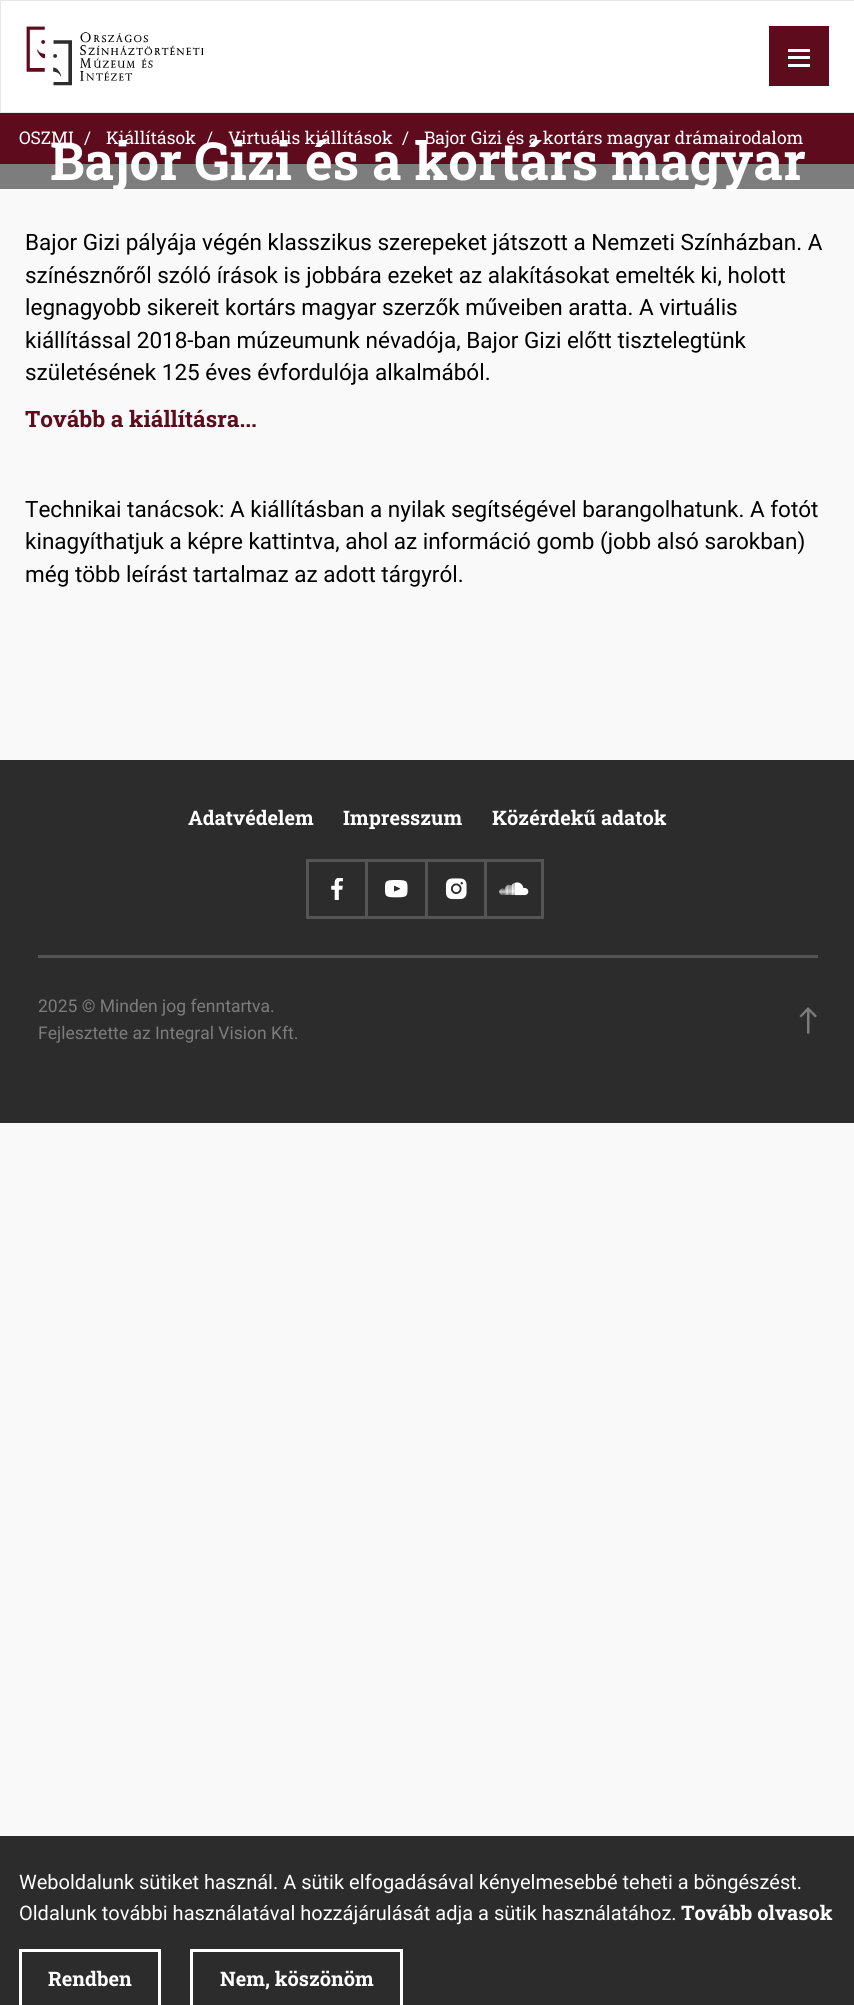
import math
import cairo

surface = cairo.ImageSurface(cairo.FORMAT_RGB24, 854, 2005)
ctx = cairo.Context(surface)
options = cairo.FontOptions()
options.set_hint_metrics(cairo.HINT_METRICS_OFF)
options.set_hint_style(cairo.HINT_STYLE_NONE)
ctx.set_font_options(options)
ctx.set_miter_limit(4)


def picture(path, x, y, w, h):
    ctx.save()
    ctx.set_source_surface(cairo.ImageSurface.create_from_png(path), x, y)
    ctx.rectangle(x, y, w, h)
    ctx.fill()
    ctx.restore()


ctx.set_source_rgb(0.976, 0.976, 0.976)
ctx.paint()
ctx.set_source_rgb(1, 1, 1)
ctx.rectangle(0.5, 0.5, 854, 112)
ctx.fill_preserve()
ctx.set_source_rgb(0.906, 0.906, 0.906)
ctx.set_line_width(1)
ctx.stroke()
picture("img1.png", 26, 26, 178, 60)
ctx.set_source_rgb(0.369, 0.043, 0.114)
ctx.rectangle(769, 26, 60, 60)
ctx.fill()
ctx.set_source_rgb(1, 1, 1)
ctx.rectangle(788, 49, 22, 3)
ctx.fill()
ctx.rectangle(788, 56, 22, 3)
ctx.fill()
ctx.rectangle(788, 64, 22, 3)
ctx.fill()
ctx.set_source_rgb(0.369, 0.043, 0.114)
ctx.rectangle(0, 113, 854, 51)
ctx.fill()
ctx.select_font_face("Roboto Slab")
ctx.set_font_size(17.5)
ctx.set_source_rgb(1, 1, 1)
ctx.move_to(19, 144)
ctx.show_text("OSZMI")
ctx.move_to(84, 144)
ctx.show_text("/")
ctx.move_to(106, 144)
ctx.show_text("Kiállítások")
ctx.move_to(206, 144)
ctx.show_text("/")
ctx.move_to(228, 144)
ctx.show_text("Virtuális kiállítások")
ctx.move_to(402, 144)
ctx.show_text("/")
ctx.move_to(424, 144)
ctx.show_text("Bajor Gizi és a kortárs magyar drámairodalom")
ctx.set_source_rgb(0.49, 0.49, 0.49)
ctx.rectangle(0, 164, 854, 25)
ctx.fill()
ctx.select_font_face("Roboto Slab", cairo.FONT_SLANT_NORMAL, cairo.FONT_WEIGHT_BOLD)
ctx.set_font_size(52.5)
ctx.set_source_rgb(1, 1, 1)
ctx.move_to(50, 180)
ctx.show_text("Bajor Gizi és a kortárs magyar")
ctx.select_font_face("Roboto")
ctx.set_font_size(22.5)
ctx.set_source_rgb(0, 0, 0)
ctx.move_to(25, 250)
ctx.show_text("Bajor Gizi pályája végén klasszikus szerepeket játszott a Nemzeti Színházban. A")
ctx.move_to(25, 283)
ctx.show_text("színésznőről szóló írások is jobbára ezeket az alakításokat emelték ki, holott")
ctx.move_to(25, 315)
ctx.show_text("legnagyobb sikereit kortárs magyar szerzők műveiben aratta. A virtuális")
ctx.move_to(25, 348)
ctx.show_text("kiállítással 2018-ban múzeumunk névadója, Bajor Gizi előtt tisztelegtünk")
ctx.move_to(25, 380)
ctx.show_text("születésének 125 éves évfordulója alkalmából.")
ctx.select_font_face("Roboto Slab", cairo.FONT_SLANT_NORMAL, cairo.FONT_WEIGHT_BOLD)
ctx.set_source_rgb(0.369, 0.043, 0.114)
ctx.move_to(25, 427)
ctx.show_text("Tovább a kiállításra...")
ctx.select_font_face("Roboto")
ctx.set_source_rgb(0, 0, 0)
ctx.move_to(25, 517)
ctx.show_text("Technikai tanácsok: A kiállításban a nyilak segítségével barangolhatunk. A fotót")
ctx.move_to(25, 549)
ctx.show_text("kinagyíthatjuk a képre kattintva, ahol az információ gomb (jobb alsó sarokban)")
ctx.move_to(25, 582)
ctx.show_text("még több leírást tartalmaz az adott tárgyról.")
ctx.set_source_rgb(0.173, 0.173, 0.173)
ctx.rectangle(0, 760, 854, 363)
ctx.fill()
ctx.select_font_face("Roboto Slab", cairo.FONT_SLANT_NORMAL, cairo.FONT_WEIGHT_BOLD)
ctx.set_font_size(20)
ctx.set_source_rgb(1, 1, 1)
ctx.move_to(188, 825)
ctx.show_text("Adatvédelem")
ctx.move_to(343, 825)
ctx.show_text("Impresszum")
ctx.move_to(492, 825)
ctx.show_text("Közérdekű adatok")
picture("img2.png", 331, 878, 12, 22)
ctx.set_source_rgb(0.333, 0.333, 0.333)
ctx.rectangle(306, 859, 179, 3)
ctx.fill()
ctx.rectangle(306, 916, 179, 3)
ctx.fill()
ctx.rectangle(306, 859, 3, 60)
ctx.fill()
picture("img3.png", 385, 880, 23, 18)
ctx.rectangle(365, 859, 3, 60)
ctx.fill()
picture("img4.png", 445, 878, 22, 22)
ctx.rectangle(425, 859, 3, 60)
ctx.fill()
picture("img5.png", 499, 882, 30, 14)
ctx.rectangle(485.5, 860.5, 57, 57)
ctx.set_line_width(3)
ctx.stroke()
ctx.rectangle(38, 955, 780, 3)
ctx.fill()
ctx.select_font_face("Roboto")
ctx.set_font_size(17.5)
ctx.set_source_rgb(0.486, 0.486, 0.486)
ctx.move_to(38, 1012)
ctx.show_text("2025 © Minden jog fenntartva.")
ctx.move_to(38, 1039)
ctx.show_text("Fejlesztette az Integral Vision Kft.")
ctx.set_fill_rule(cairo.FILL_RULE_EVEN_ODD)
ctx.new_path()
ctx.move_to(817, 1016)
ctx.line_to(815, 1017.5)
ctx.line_to(809.5, 1011.5)
ctx.line_to(809.5, 1033.5)
ctx.line_to(807, 1033.5)
ctx.line_to(807, 1011.5)
ctx.line_to(801, 1017.5)
ctx.line_to(799.5, 1016)
ctx.line_to(808, 1007)
ctx.close_path()
ctx.fill()
ctx.set_source_rgb(0.173, 0.173, 0.173)
ctx.rectangle(0, 1836, 854, 169)
ctx.fill()
ctx.set_font_size(20)
ctx.set_source_rgb(1, 1, 1)
ctx.move_to(19, 1889)
ctx.show_text("Weboldalunk sütiket használ. A sütik elfogadásával kényelmesebbé teheti a böngészést.")
ctx.move_to(19, 1920)
ctx.show_text("Oldalunk további használatával hozzájárulását adja a sütik használatához.")
ctx.select_font_face("Roboto Slab", cairo.FONT_SLANT_NORMAL, cairo.FONT_WEIGHT_BOLD)
ctx.move_to(681, 1920)
ctx.show_text("Tovább olvasok")
ctx.rectangle(20.5, 1950.5, 139, 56)
ctx.stroke()
ctx.move_to(48, 1986)
ctx.show_text("Rendben")
ctx.rectangle(191.5, 1950.5, 210, 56)
ctx.stroke()
ctx.move_to(220, 1986)
ctx.show_text("Nem, köszönöm")
surface.write_to_png("page.png")
